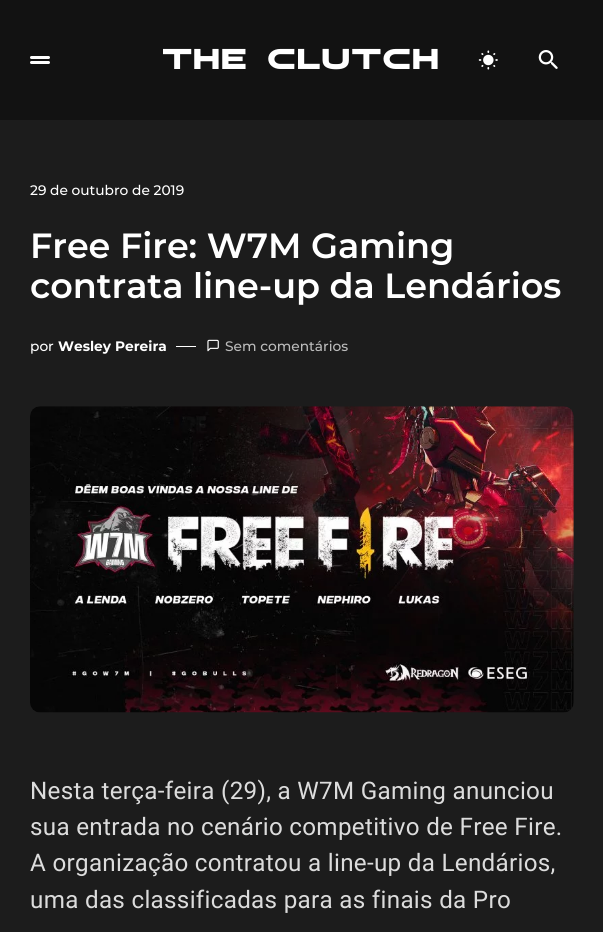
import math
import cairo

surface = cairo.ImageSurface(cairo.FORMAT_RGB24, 603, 932)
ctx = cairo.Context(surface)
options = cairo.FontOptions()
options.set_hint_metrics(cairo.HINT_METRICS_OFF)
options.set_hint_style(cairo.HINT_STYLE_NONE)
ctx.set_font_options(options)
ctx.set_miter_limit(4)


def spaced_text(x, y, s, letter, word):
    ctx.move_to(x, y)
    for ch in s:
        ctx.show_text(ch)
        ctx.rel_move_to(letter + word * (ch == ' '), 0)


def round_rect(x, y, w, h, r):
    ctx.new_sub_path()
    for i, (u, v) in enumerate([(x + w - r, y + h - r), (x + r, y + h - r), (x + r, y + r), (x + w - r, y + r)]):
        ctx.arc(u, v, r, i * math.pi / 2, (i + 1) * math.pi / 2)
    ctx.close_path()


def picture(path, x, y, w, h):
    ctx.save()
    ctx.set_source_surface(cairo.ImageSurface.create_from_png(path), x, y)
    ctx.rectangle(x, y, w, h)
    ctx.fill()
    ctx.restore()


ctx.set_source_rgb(0.11, 0.11, 0.11)
ctx.paint()
ctx.set_source_rgb(0.071, 0.071, 0.071)
ctx.rectangle(0, 0, 603, 120)
ctx.fill()
ctx.set_source_rgb(1, 1, 1)
round_rect(30, 56, 20, 3, 1.5)
ctx.fill()
round_rect(30, 61, 20, 3, 1.5)
ctx.fill()
ctx.select_font_face("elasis")
ctx.set_font_size(35)
spaced_text(163, 69, "The Clutch", 0.6, 0)
picture("img1.png", 478, 50, 20, 20)
picture("img2.png", 538, 50, 20, 19)
ctx.select_font_face("Montserrat Medium")
ctx.set_font_size(13.75)
ctx.move_to(30, 195)
ctx.show_text("29 de outubro de 2019")
ctx.select_font_face("Montserrat SemiBold")
ctx.set_font_size(35)
spaced_text(30, 258, "Free Fire: W7M Gaming", -0.05, 0)
spaced_text(30, 298, "contrata line-up da Lendários", -0.05, 0)
ctx.select_font_face("Montserrat Medium")
ctx.set_font_size(13.75)
ctx.move_to(30, 351)
ctx.show_text("por")
ctx.select_font_face("Montserrat", cairo.FONT_SLANT_NORMAL, cairo.FONT_WEIGHT_BOLD)
ctx.move_to(58, 351)
ctx.show_text("Wesley Pereira")
ctx.rectangle(176, 346, 20, 1)
ctx.fill()
picture("img3.png", 207, 339, 12, 13)
ctx.select_font_face("Montserrat Medium")
ctx.set_source_rgb(0.737, 0.737, 0.737)
ctx.move_to(225, 351)
ctx.show_text("Sem comentários")
picture("img4.png", 30, 406, 544, 307)
ctx.select_font_face("Roboto")
ctx.set_font_size(24.2)
ctx.set_source_rgb(0.863, 0.863, 0.863)
spaced_text(30, 799, "Nesta terça-feira (29), a W7M Gaming anunciou", 0.3, 0)
spaced_text(30, 835, "sua entrada no cenário competitivo de Free Fire.", 0.3, 0)
spaced_text(30, 871, "A organização contratou a line-up da Lendários,", 0.3, 0)
spaced_text(30, 908, "uma das classificadas para as finais da Pro", 0.3, 0)
surface.write_to_png("page.png")
